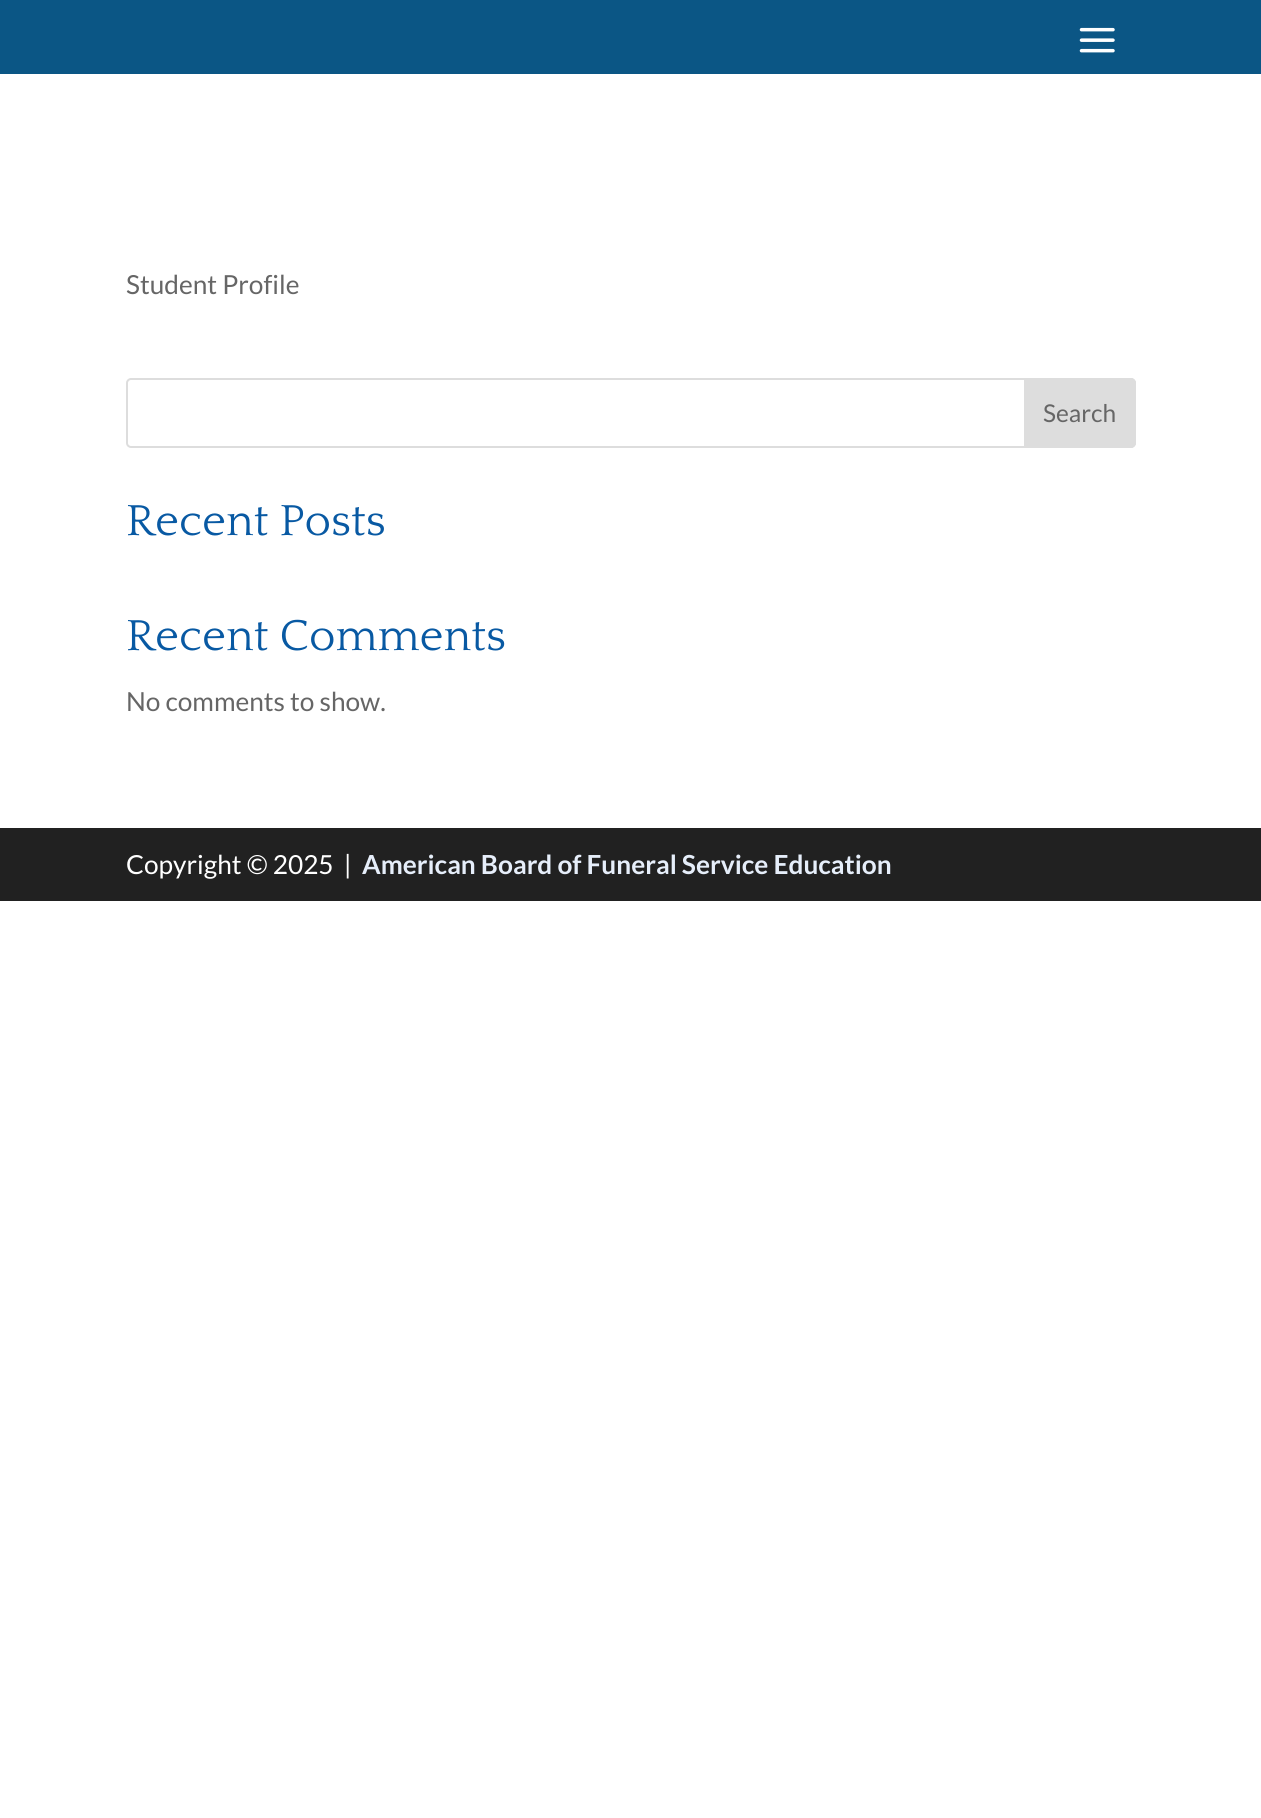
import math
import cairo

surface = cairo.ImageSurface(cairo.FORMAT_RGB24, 1261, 1818)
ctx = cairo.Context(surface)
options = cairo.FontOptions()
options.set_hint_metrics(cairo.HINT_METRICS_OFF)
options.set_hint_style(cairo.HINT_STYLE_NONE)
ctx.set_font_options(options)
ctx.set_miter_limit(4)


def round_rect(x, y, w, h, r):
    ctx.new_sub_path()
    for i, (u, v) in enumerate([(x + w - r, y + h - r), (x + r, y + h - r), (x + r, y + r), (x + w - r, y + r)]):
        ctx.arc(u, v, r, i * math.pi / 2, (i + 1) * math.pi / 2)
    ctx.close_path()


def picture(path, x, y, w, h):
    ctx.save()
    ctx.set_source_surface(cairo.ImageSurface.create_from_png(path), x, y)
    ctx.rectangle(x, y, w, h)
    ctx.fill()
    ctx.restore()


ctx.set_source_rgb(1, 1, 1)
ctx.paint()
ctx.set_source_rgb(0.043, 0.337, 0.522)
ctx.rectangle(0, 0, 1261, 74)
ctx.fill()
picture("img1.png", 1079, 27, 36, 26)
ctx.select_font_face("Lato")
ctx.set_font_size(26.25)
ctx.set_source_rgb(0.4, 0.4, 0.4)
ctx.move_to(126, 294)
ctx.show_text("Student Profile")
round_rect(127, 379, 1008, 68, 4)
ctx.set_source_rgb(0.867, 0.867, 0.867)
ctx.stroke()
ctx.new_path()
ctx.move_to(1025, 379)
ctx.line_to(1131, 379)
ctx.curve_to(1133, 379, 1135, 381, 1135, 383)
ctx.line_to(1135, 443)
ctx.curve_to(1135, 445, 1133, 447, 1131, 447)
ctx.line_to(1025, 447)
ctx.close_path()
ctx.fill_preserve()
ctx.stroke()
ctx.set_font_size(24.5)
ctx.set_source_rgb(0.4, 0.4, 0.4)
ctx.move_to(1043, 422)
ctx.show_text("Search")
ctx.select_font_face("Quattrocento")
ctx.set_font_size(45.5)
ctx.set_source_rgb(0.035, 0.349, 0.639)
ctx.move_to(126, 535)
ctx.show_text("Recent Posts")
ctx.move_to(126, 650)
ctx.show_text("Recent Comments")
ctx.select_font_face("Lato")
ctx.set_font_size(26.25)
ctx.set_source_rgb(0.4, 0.4, 0.4)
ctx.move_to(126, 711)
ctx.show_text("No comments to show.")
ctx.set_source_rgb(0.129, 0.129, 0.129)
ctx.rectangle(0, 828, 1261, 73)
ctx.fill()
ctx.set_source_rgb(1, 1, 1)
ctx.move_to(126, 874)
ctx.show_text("Copyright © 2025  |")
ctx.select_font_face("Lato", cairo.FONT_SLANT_NORMAL, cairo.FONT_WEIGHT_BOLD)
ctx.set_source_rgb(0.902, 0.933, 0.98)
ctx.move_to(362, 874)
ctx.show_text("American Board of Funeral Service Education")
surface.write_to_png("page.png")
